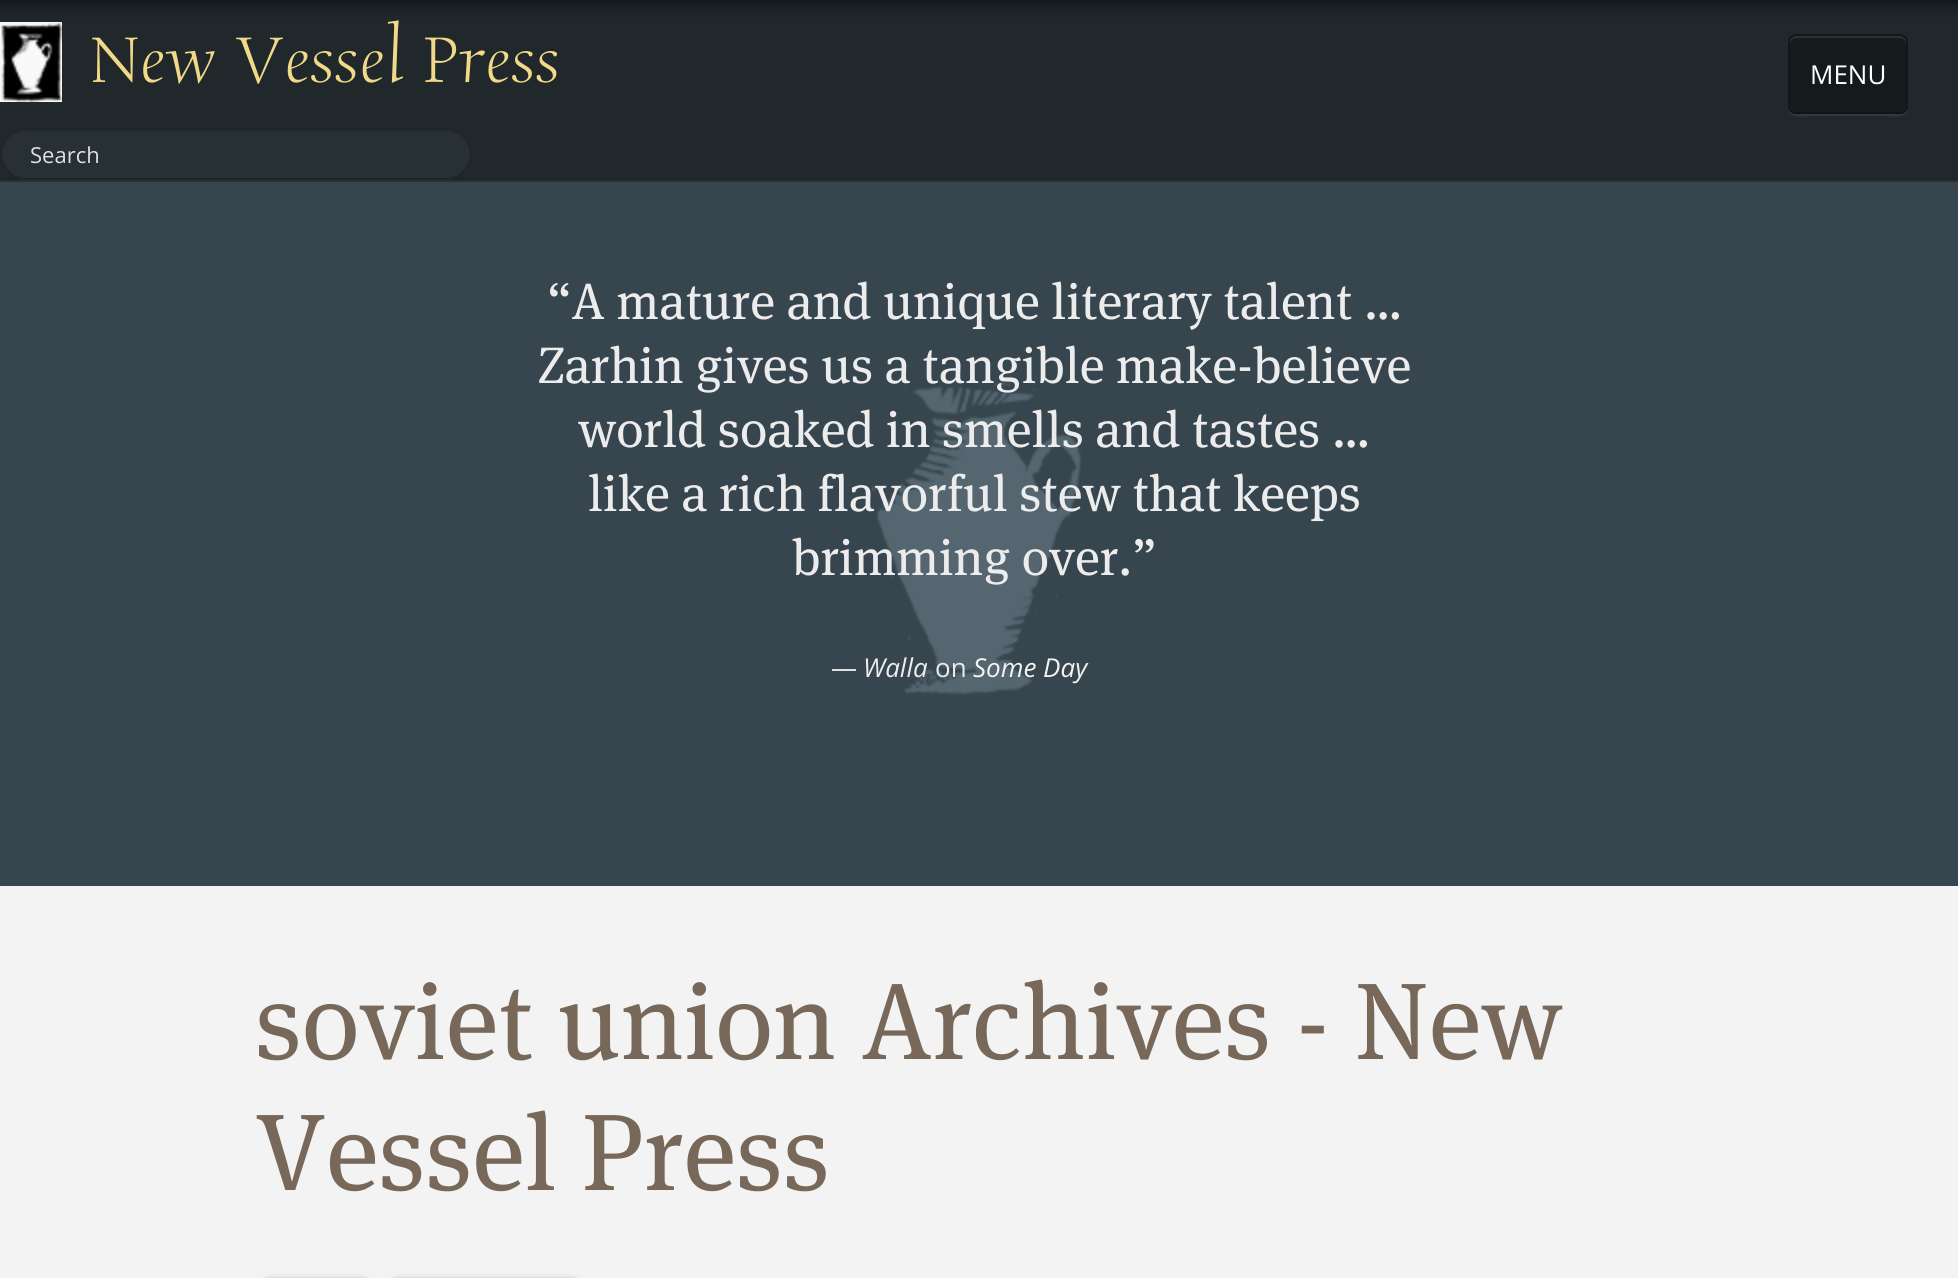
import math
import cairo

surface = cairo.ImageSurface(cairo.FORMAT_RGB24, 1958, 1278)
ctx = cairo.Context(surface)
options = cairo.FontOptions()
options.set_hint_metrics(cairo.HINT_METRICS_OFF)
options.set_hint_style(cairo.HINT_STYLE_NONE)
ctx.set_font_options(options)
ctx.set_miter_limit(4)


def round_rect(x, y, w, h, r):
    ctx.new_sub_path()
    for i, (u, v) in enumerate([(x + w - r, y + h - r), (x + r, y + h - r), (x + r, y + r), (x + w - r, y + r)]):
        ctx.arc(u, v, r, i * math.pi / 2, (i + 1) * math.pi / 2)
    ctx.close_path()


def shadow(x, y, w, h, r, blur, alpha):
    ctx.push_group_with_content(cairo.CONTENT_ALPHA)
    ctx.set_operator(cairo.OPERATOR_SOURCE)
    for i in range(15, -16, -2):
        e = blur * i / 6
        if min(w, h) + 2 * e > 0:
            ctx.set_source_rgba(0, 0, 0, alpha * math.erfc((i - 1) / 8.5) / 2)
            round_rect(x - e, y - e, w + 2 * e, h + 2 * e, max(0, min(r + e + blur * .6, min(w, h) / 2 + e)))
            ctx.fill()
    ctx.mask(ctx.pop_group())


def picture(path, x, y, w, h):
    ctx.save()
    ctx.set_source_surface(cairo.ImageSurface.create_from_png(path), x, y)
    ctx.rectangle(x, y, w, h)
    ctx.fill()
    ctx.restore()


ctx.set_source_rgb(0.953, 0.953, 0.953)
ctx.paint()
ctx.set_source_rgb(0.125, 0.157, 0.173)
ctx.rectangle(0, 0, 1958, 178)
ctx.fill()
picture("img1.png", 0, 22, 62, 80)
ctx.set_source_rgb(0, 0, 0)
shadow(-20, -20, 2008, 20, 0, 10, 0.8)
ctx.set_source_rgb(0.114, 0.141, 0.157)
ctx.rectangle(0, 178, 1958, 2)
ctx.fill()
ctx.set_source_rgb(0.149, 0.188, 0.208)
ctx.rectangle(0, 180, 1958, 2)
ctx.fill()
ctx.select_font_face("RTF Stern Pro")
ctx.set_font_size(92)
ctx.set_source_rgb(0.945, 0.851, 0.529)
ctx.move_to(90, 82)
ctx.show_text("New Vessel Press")
ctx.set_source_rgb(0.192, 0.22, 0.235)
ctx.new_path()
ctx.move_to(1788, 106)
ctx.curve_to(1788, 120, 1803, 116, 1813, 116)
ctx.line_to(1883, 116)
ctx.curve_to(1893, 116, 1908, 120, 1908, 106)
ctx.curve_to(1908, 110, 1904, 114, 1900, 114)
ctx.line_to(1796, 114)
ctx.curve_to(1792, 114, 1788, 110, 1788, 106)
ctx.close_path()
ctx.fill()
ctx.set_source_rgb(0.082, 0.106, 0.114)
round_rect(1788, 34, 120, 80, 8)
ctx.fill()
ctx.save()
round_rect(1788, 34, 120, 80, 8)
ctx.clip()
ctx.rectangle(1788, 36, 120, 76)
ctx.fill()
ctx.restore()
ctx.set_source_rgb(0.173, 0.196, 0.204)
ctx.new_path()
ctx.move_to(1796, 38)
ctx.line_to(1900, 38)
ctx.curve_to(1903, 38, 1906, 41, 1906, 44)
ctx.line_to(1906, 42)
ctx.curve_to(1906, 39, 1903, 36, 1900, 36)
ctx.line_to(1796, 36)
ctx.curve_to(1793, 36, 1790, 39, 1790, 42)
ctx.line_to(1790, 44)
ctx.curve_to(1790, 41, 1793, 38, 1796, 38)
ctx.close_path()
ctx.fill()
ctx.new_path()
ctx.move_to(1905, 111)
ctx.curve_to(1903.5, 112.5, 1902, 113, 1900, 113)
ctx.line_to(1796, 113)
ctx.curve_to(1794, 113, 1792.5, 112.5, 1791, 111)
ctx.set_source_rgba(0, 0, 0, 0.25)
ctx.stroke()
ctx.new_path()
ctx.move_to(1791, 111)
ctx.curve_to(1789.5, 109.5, 1789, 108, 1789, 106)
ctx.line_to(1789, 42)
ctx.curve_to(1789, 40, 1789.5, 38.5, 1791, 37)
ctx.curve_to(1792.5, 35.5, 1794, 35, 1796, 35)
ctx.line_to(1900, 35)
ctx.curve_to(1902, 35, 1903.5, 35.5, 1905, 37)
ctx.curve_to(1906.5, 38.5, 1907, 40, 1907, 42)
ctx.line_to(1907, 106)
ctx.curve_to(1907, 108, 1906.5, 109.5, 1905, 111)
ctx.set_source_rgba(0, 0, 0, 0.1)
ctx.stroke()
ctx.select_font_face("Open Sans")
ctx.set_font_size(26)
ctx.set_source_rgb(1, 1, 1)
ctx.move_to(1810, 84)
ctx.show_text("MENU")
ctx.set_source_rgb(0.149, 0.188, 0.208)
round_rect(0, 128, 472, 52, 26)
ctx.fill()
ctx.set_source_rgb(0.137, 0.173, 0.192)
ctx.new_path()
ctx.move_to(26, 132)
ctx.line_to(446, 132)
ctx.curve_to(459, 132, 469, 142, 470, 155)
ctx.curve_to(471, 142, 459, 130, 446, 130)
ctx.line_to(26, 130)
ctx.curve_to(13, 130, 1, 142, 2, 155)
ctx.curve_to(3, 142, 13, 132, 26, 132)
ctx.close_path()
ctx.fill()
round_rect(1, 129, 470, 50, 25)
ctx.set_source_rgb(0.137, 0.137, 0.137)
ctx.stroke()
ctx.set_font_size(22)
ctx.set_source_rgb(0.878, 0.878, 0.871)
ctx.move_to(30, 163)
ctx.show_text("Search")
ctx.set_source_rgb(0.216, 0.275, 0.306)
ctx.rectangle(0, 182, 1958, 704)
ctx.fill()
picture("img2.png", 871, 381, 211, 314)
ctx.select_font_face("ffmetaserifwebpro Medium")
ctx.set_font_size(51.25)
ctx.set_source_rgb(0.925, 0.925, 0.922)
ctx.move_to(547, 319)
ctx.show_text("“A mature and unique literary talent …")
ctx.move_to(538, 383)
ctx.show_text("Zarhin gives us a tangible make-believe")
ctx.move_to(578, 447)
ctx.show_text("world soaked in smells and tastes …")
ctx.move_to(588, 511)
ctx.show_text("like a rich flavorful stew that keeps")
ctx.move_to(792, 575)
ctx.show_text("brimming over.”")
ctx.select_font_face("Open Sans")
ctx.set_font_size(26)
ctx.move_to(831, 677)
ctx.show_text("—")
ctx.select_font_face("Open Sans", cairo.FONT_SLANT_ITALIC)
ctx.move_to(863, 677)
ctx.show_text("Walla")
ctx.select_font_face("Open Sans")
ctx.move_to(935, 677)
ctx.show_text("on")
ctx.select_font_face("Open Sans", cairo.FONT_SLANT_ITALIC)
ctx.set_source_rgb(0.953, 0.953, 0.953)
ctx.move_to(973, 677)
ctx.show_text("Some Day")
ctx.select_font_face("ffmetaserifwebpro Medium")
ctx.set_font_size(108.75)
ctx.set_source_rgb(0.467, 0.408, 0.349)
ctx.move_to(255, 1059)
ctx.show_text("soviet union Archives - New")
ctx.move_to(255, 1190)
ctx.show_text("Vessel Press")
ctx.set_source_rgb(0, 0, 0)
shadow(264, 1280, 104, 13, 6, 3, 0.4)
shadow(392, 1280, 186, 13, 6, 3, 0.4)
surface.write_to_png("page.png")
